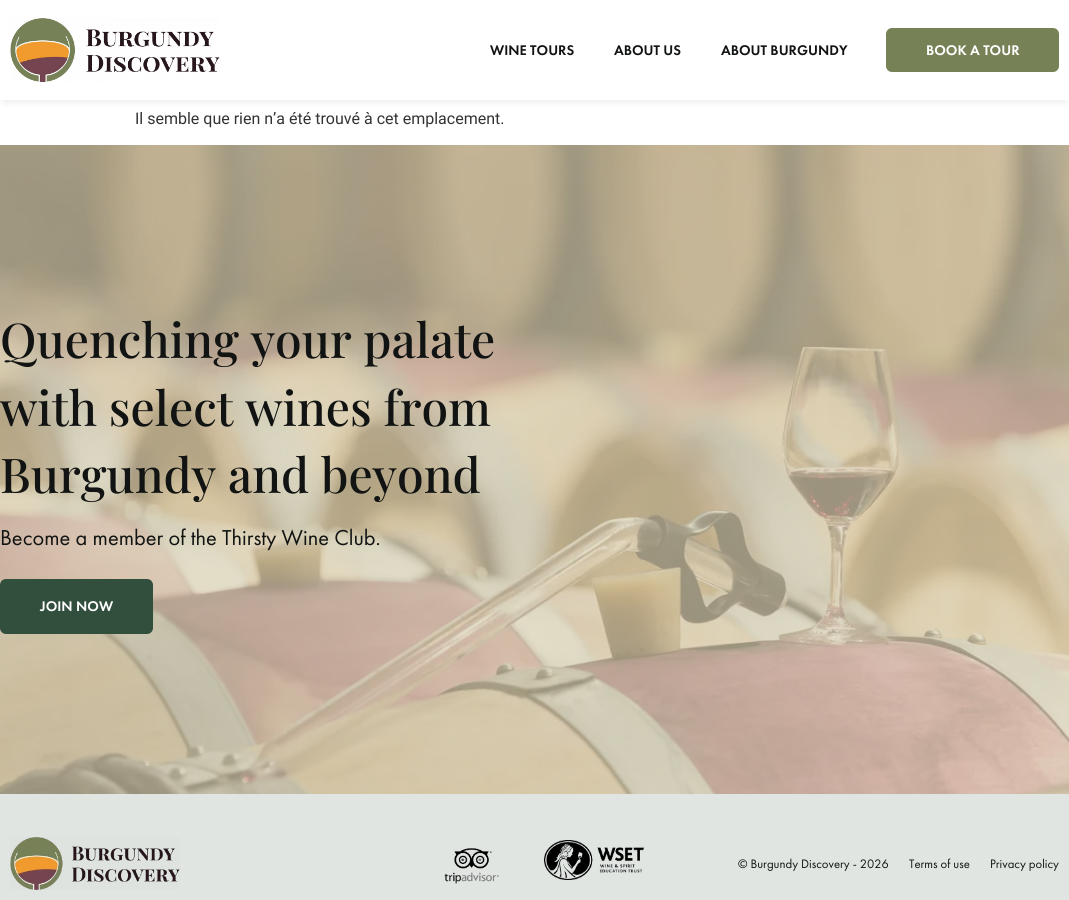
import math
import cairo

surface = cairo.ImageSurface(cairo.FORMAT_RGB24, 1069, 900)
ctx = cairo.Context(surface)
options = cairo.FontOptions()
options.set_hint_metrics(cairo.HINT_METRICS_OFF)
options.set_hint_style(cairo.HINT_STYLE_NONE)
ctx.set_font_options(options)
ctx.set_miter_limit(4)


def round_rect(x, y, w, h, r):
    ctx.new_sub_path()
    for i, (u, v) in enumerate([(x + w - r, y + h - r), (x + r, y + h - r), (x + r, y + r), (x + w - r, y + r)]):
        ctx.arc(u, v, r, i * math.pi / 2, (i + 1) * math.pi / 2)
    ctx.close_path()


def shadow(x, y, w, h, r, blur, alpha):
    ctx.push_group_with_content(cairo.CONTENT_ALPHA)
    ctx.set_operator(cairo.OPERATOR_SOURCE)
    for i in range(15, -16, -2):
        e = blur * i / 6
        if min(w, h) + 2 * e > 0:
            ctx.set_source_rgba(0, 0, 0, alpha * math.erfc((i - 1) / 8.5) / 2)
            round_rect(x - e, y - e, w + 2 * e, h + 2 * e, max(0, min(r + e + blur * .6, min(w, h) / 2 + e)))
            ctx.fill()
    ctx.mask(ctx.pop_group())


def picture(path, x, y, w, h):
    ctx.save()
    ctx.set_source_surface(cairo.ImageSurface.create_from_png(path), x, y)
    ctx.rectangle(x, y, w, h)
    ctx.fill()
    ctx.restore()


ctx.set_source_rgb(1, 1, 1)
ctx.paint()
ctx.set_source_rgb(0, 0, 0)
shadow(4, 9, 1061, 92, 0, 4, 0.1)
ctx.set_source_rgb(1, 1, 1)
ctx.rectangle(0, 4, 1069, 96)
ctx.fill()
picture("img1.png", 10, 18, 210, 65)
ctx.select_font_face("Futura PT Medium")
ctx.set_font_size(14.5)
ctx.set_source_rgb(0.067, 0.082, 0.071)
ctx.move_to(490, 55)
ctx.show_text("WINE TOURS")
ctx.move_to(614, 55)
ctx.show_text("ABOUT US")
ctx.move_to(721, 55)
ctx.show_text("ABOUT BURGUNDY")
ctx.set_source_rgb(0.463, 0.51, 0.337)
round_rect(886, 28, 173, 44, 6)
ctx.fill()
ctx.set_source_rgb(1, 1, 1)
ctx.move_to(926, 55)
ctx.show_text("BOOK A TOUR")
ctx.select_font_face("Roboto")
ctx.set_font_size(16)
ctx.set_source_rgb(0.2, 0.2, 0.2)
ctx.move_to(135, 124)
ctx.show_text("Il semble que rien n’a été trouvé à cet emplacement.")
picture("img2.png", 0, 145, 1069, 649)
ctx.select_font_face("Playfair Display Medium")
ctx.set_font_size(48)
ctx.set_source_rgb(0.067, 0.082, 0.071)
ctx.move_to(0, 358)
ctx.show_text("Quenching your palate")
ctx.move_to(0, 426)
ctx.show_text("with select wines from")
ctx.move_to(0, 493)
ctx.show_text("Burgundy and beyond")
ctx.select_font_face("Futura PT")
ctx.set_font_size(22.4)
ctx.move_to(0, 545)
ctx.show_text("Become a member of the Thirsty Wine Club.")
ctx.set_source_rgb(0.196, 0.31, 0.239)
round_rect(0, 579, 153, 55, 6)
ctx.fill()
ctx.select_font_face("Futura PT Medium")
ctx.set_font_size(14.5)
ctx.set_source_rgb(1, 1, 1)
ctx.move_to(40, 611)
ctx.show_text("JOIN NOW")
ctx.set_source_rgb(0.878, 0.898, 0.886)
ctx.rectangle(0, 794, 1069, 106)
ctx.fill()
picture("img3.png", 10, 837, 170, 53)
picture("img4.png", 444, 848, 55, 36)
picture("img5.png", 544, 840, 100, 40)
ctx.select_font_face("Futura PT")
ctx.set_font_size(12.75)
ctx.set_source_rgb(0.067, 0.082, 0.071)
ctx.move_to(738, 868)
ctx.show_text("© Burgundy Discovery - 2026")
ctx.move_to(909, 868)
ctx.show_text("Terms of use")
ctx.move_to(990, 868)
ctx.show_text("Privacy policy")
surface.write_to_png("page.png")
